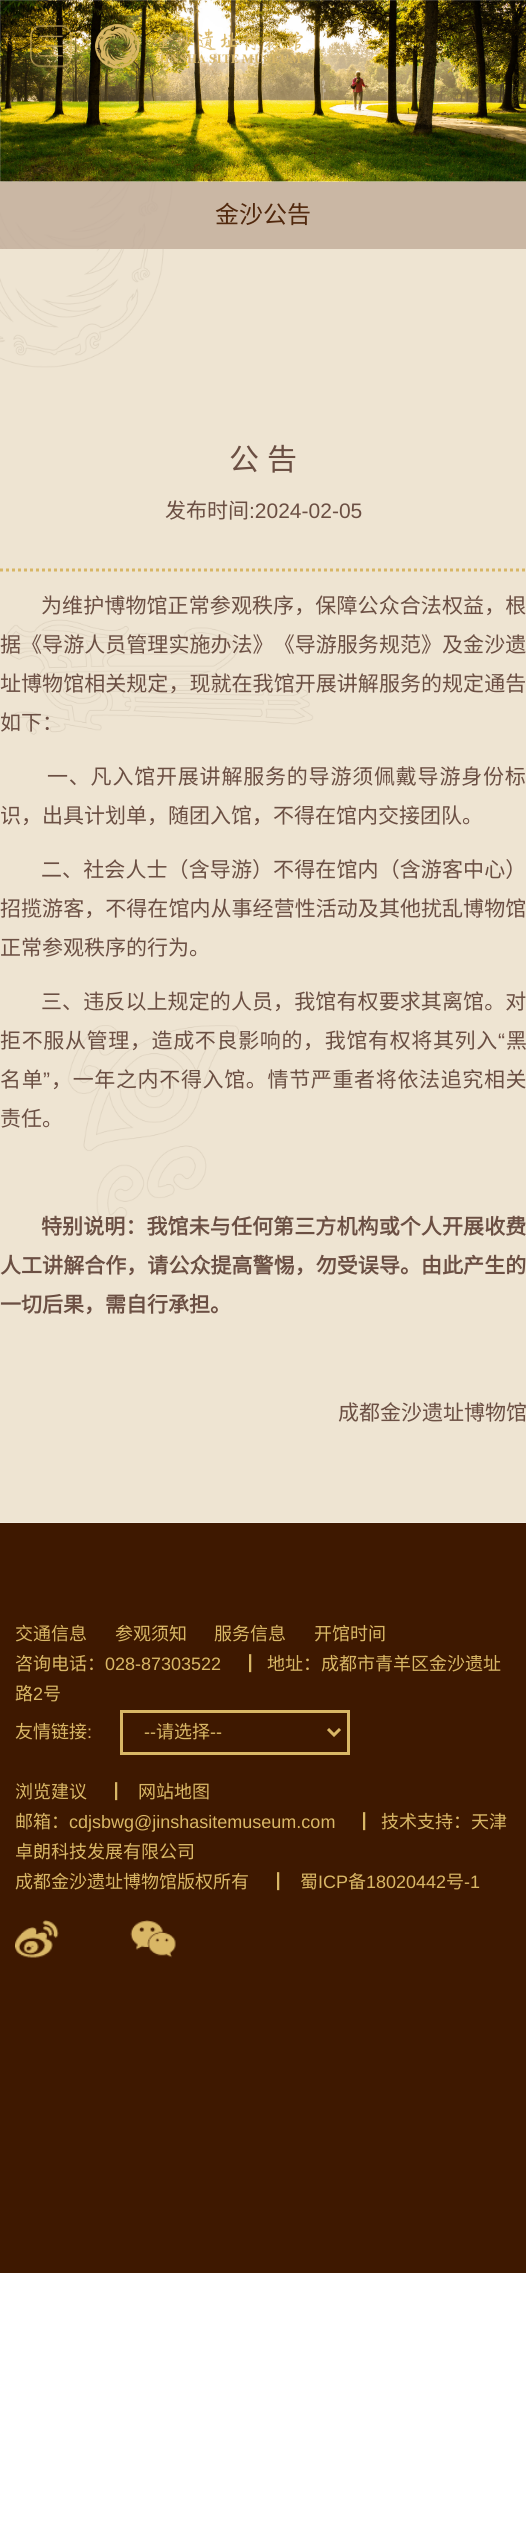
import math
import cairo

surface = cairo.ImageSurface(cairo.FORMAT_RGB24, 526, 2544)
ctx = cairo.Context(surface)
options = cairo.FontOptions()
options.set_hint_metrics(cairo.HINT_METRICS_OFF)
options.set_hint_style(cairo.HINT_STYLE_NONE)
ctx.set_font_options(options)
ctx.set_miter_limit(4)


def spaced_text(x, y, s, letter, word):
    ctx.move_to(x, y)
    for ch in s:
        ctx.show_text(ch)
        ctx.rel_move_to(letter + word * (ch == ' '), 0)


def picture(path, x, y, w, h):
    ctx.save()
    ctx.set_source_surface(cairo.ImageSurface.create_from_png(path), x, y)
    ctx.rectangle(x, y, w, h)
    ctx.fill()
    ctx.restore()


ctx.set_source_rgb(1, 1, 1)
ctx.paint()
picture("img1.png", 0, 0, 526, 182)
picture("img2.png", 30, 25, 42, 43)
picture("img3.png", 94, 24, 209, 45)
picture("img4.png", 0, 181, 526, 1342)
ctx.set_source_rgba(0.753, 0.671, 0.596, 0.8)
ctx.rectangle(0, 182, 526, 67)
ctx.fill()
ctx.select_font_face("Noto Sans CJK SC")
ctx.set_font_size(24)
ctx.set_source_rgb(0.318, 0.157, 0.051)
ctx.move_to(215, 223)
ctx.show_text("金沙公告")
picture("img5.png", 0, 249, 526, 1274)
ctx.set_font_size(30)
ctx.set_source_rgb(0.42, 0.31, 0.263)
ctx.move_to(229, 470)
ctx.show_text("公")
ctx.move_to(267, 470)
ctx.show_text("告")
ctx.new_path()
ctx.move_to(0, 570)
ctx.line_to(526.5, 570)
ctx.set_source_rgb(0.847, 0.714, 0.4)
ctx.set_line_width(3)
ctx.set_dash([3, 3])
ctx.stroke()
ctx.set_font_size(21)
ctx.set_source_rgb(0.42, 0.31, 0.263)
ctx.move_to(165, 518)
ctx.show_text("发布时间")
ctx.select_font_face("Liberation Sans")
ctx.move_to(249, 518)
ctx.show_text(":2024-02-05")
ctx.select_font_face("Noto Sans CJK SC")
spaced_text(41, 613, "为维护博物馆正常参观秩序，保障公众合法权益，根", 0.1, 0)
spaced_text(0, 652, "据《导游人员管理实施办法》《导游服务规范》及金沙遗", 0.05, 0)
spaced_text(0, 691, "址博物馆相关规定，现就在我馆开展讲解服务的规定通告", 0.05, 0)
ctx.move_to(0, 730)
ctx.show_text("如下：")
spaced_text(47, 784, "一、凡入馆开展讲解服务的导游须佩戴导游身份标", 0.8, 0)
ctx.move_to(0, 823)
ctx.show_text("识，出具计划单，随团入馆，不得在馆内交接团队。")
spaced_text(41, 877, "二、社会人士（含导游）不得在馆内（含游客中心）", 0.1, 0)
spaced_text(0, 916, "招揽游客，不得在馆内从事经营性活动及其他扰乱博物馆", 0.05, 0)
ctx.move_to(0, 955)
ctx.show_text("正常参观秩序的行为。")
spaced_text(41, 1009, "三、违反以上规定的人员，我馆有权要求其离馆。对", 0.1, 0)
spaced_text(0, 1048, "拒不服从管理，造成不良影响的，我馆有权将其列入", 0.65, 0)
ctx.select_font_face("Liberation Sans")
spaced_text(498, 1048, "“", 0.65, 0)
ctx.select_font_face("Noto Sans CJK SC")
spaced_text(506, 1048, "黑", 0.65, 0)
spaced_text(0, 1087, "名单", 0.65, 0)
ctx.select_font_face("Liberation Sans")
spaced_text(43, 1087, "”", 0.65, 0)
ctx.select_font_face("Noto Sans CJK SC")
spaced_text(51, 1087, "，一年之内不得入馆。情节严重者将依法追究相关", 0.65, 0)
ctx.move_to(0, 1126)
ctx.show_text("责任。")
ctx.select_font_face("Noto Sans CJK SC", cairo.FONT_SLANT_NORMAL, cairo.FONT_WEIGHT_BOLD)
spaced_text(41, 1234, "特别说明：我馆未与任何第三方机构或个人开展收费", 0.1, 0)
spaced_text(0, 1273, "人工讲解合作，请公众提高警惕，勿受误导。由此产生的", 0.05, 0)
ctx.move_to(0, 1312)
ctx.show_text("一切后果，需自行承担。")
ctx.select_font_face("Noto Sans CJK SC")
ctx.move_to(338, 1420)
ctx.show_text("成都金沙遗址博物馆")
ctx.set_source_rgb(0.243, 0.094, 0)
ctx.rectangle(0, 1523, 526, 750)
ctx.fill()
ctx.set_font_size(18)
ctx.set_source_rgb(0.851, 0.718, 0.4)
ctx.move_to(15, 1640)
ctx.show_text("交通信息")
ctx.move_to(115, 1640)
ctx.show_text("参观须知")
ctx.move_to(214, 1640)
ctx.show_text("服务信息")
ctx.move_to(314, 1640)
ctx.show_text("开馆时间")
ctx.move_to(15, 1670)
ctx.show_text("咨询电话：")
ctx.select_font_face("Liberation Sans")
ctx.move_to(105, 1670)
ctx.show_text("028-87303522")
ctx.select_font_face("Noto Sans CJK SC")
ctx.move_to(249, 1670)
ctx.show_text("▏地址：成都市青羊区金沙遗址")
ctx.move_to(15, 1700)
ctx.show_text("路")
ctx.select_font_face("Liberation Sans")
ctx.move_to(33, 1700)
ctx.show_text("2")
ctx.select_font_face("Noto Sans CJK SC")
ctx.move_to(43, 1700)
ctx.show_text("号")
ctx.move_to(15, 1738)
ctx.show_text("友情链接")
ctx.select_font_face("Liberation Sans")
ctx.move_to(87, 1738)
ctx.show_text(":")
ctx.rectangle(121.5, 1711.5, 227, 42)
ctx.set_dash([])
ctx.stroke()
ctx.new_path()
ctx.move_to(328, 1729)
ctx.line_to(334, 1735)
ctx.line_to(340, 1729)
ctx.stroke()
ctx.move_to(144, 1738)
ctx.show_text("--")
ctx.select_font_face("Noto Sans CJK SC")
ctx.move_to(156, 1738)
ctx.show_text("请选择")
ctx.select_font_face("Liberation Sans")
ctx.move_to(210, 1738)
ctx.show_text("--")
ctx.select_font_face("Noto Sans CJK SC")
ctx.move_to(15, 1798)
ctx.show_text("浏览建议")
ctx.move_to(115, 1798)
ctx.show_text("▏")
ctx.move_to(138, 1798)
ctx.show_text("网站地图")
ctx.move_to(15, 1828)
ctx.show_text("邮箱：")
ctx.select_font_face("Liberation Sans")
ctx.move_to(69, 1828)
ctx.show_text("cdjsbwg@jinshasitemuseum.com")
ctx.select_font_face("Noto Sans CJK SC")
ctx.move_to(363, 1828)
ctx.show_text("▏技术支持：天津")
ctx.move_to(15, 1858)
ctx.show_text("卓朗科技发展有限公司")
ctx.move_to(15, 1888)
ctx.show_text("成都金沙遗址博物馆版权所有")
ctx.move_to(277, 1888)
ctx.show_text("▏")
ctx.move_to(300, 1888)
ctx.show_text("蜀")
ctx.select_font_face("Liberation Sans")
ctx.move_to(318, 1888)
ctx.show_text("ICP")
ctx.select_font_face("Noto Sans CJK SC")
ctx.move_to(348, 1888)
ctx.show_text("备")
ctx.select_font_face("Liberation Sans")
ctx.move_to(366, 1888)
ctx.show_text("18020442")
ctx.select_font_face("Noto Sans CJK SC")
ctx.move_to(446, 1888)
ctx.show_text("号")
ctx.select_font_face("Liberation Sans")
ctx.move_to(464, 1888)
ctx.show_text("-1")
picture("img6.png", 15, 1920, 44, 38)
picture("img7.png", 130, 1920, 46, 38)
surface.write_to_png("page.png")
